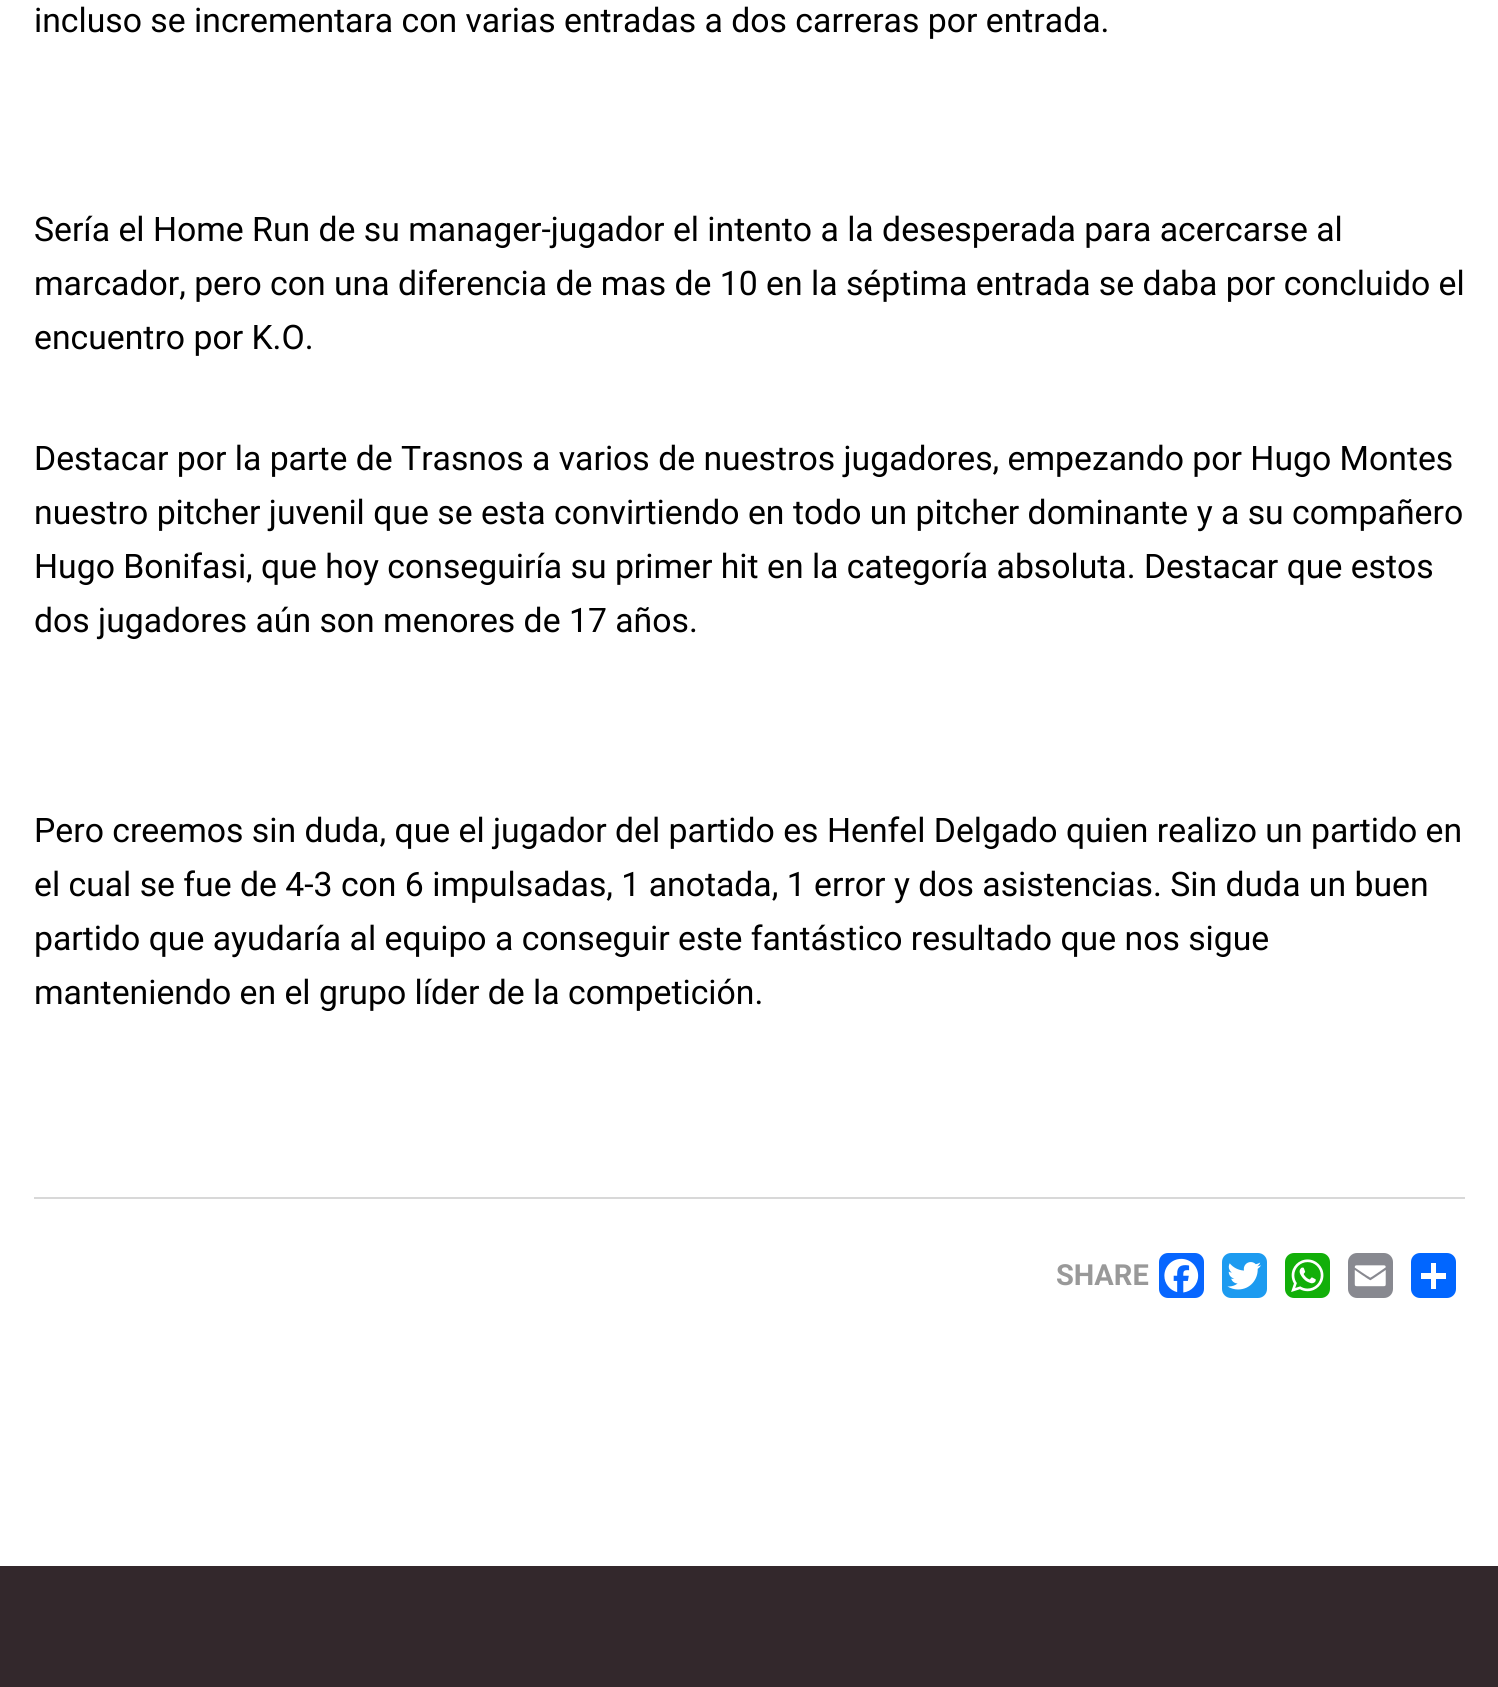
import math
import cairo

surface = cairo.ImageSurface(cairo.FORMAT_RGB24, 1498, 1687)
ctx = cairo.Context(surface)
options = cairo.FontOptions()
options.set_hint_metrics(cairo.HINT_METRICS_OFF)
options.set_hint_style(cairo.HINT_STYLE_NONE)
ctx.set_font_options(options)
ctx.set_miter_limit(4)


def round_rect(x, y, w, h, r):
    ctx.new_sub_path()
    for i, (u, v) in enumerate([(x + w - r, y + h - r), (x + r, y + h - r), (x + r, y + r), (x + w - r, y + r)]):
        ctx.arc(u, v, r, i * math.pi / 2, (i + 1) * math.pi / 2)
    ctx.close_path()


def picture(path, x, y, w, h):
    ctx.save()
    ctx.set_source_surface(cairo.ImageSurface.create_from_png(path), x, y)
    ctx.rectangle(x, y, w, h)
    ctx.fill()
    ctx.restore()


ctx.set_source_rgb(1, 1, 1)
ctx.paint()
ctx.select_font_face("Roboto")
ctx.set_font_size(33.75)
ctx.set_source_rgb(0, 0, 0)
ctx.move_to(34, 32)
ctx.show_text("incluso se incrementara con varias entradas a dos carreras por entrada.")
ctx.move_to(34, 241)
ctx.show_text("Sería el Home Run de su manager-jugador el intento a la desesperada para acercarse al")
ctx.move_to(34, 295)
ctx.show_text("marcador, pero con una diferencia de mas de 10 en la séptima entrada se daba por concluido el")
ctx.move_to(34, 349)
ctx.show_text("encuentro por K.O.")
ctx.move_to(34, 470)
ctx.show_text("Destacar por la parte de Trasnos a varios de nuestros jugadores, empezando por Hugo Montes")
ctx.move_to(34, 524)
ctx.show_text("nuestro pitcher juvenil que se esta convirtiendo en todo un pitcher dominante y a su compañero")
ctx.move_to(34, 578)
ctx.show_text("Hugo Bonifasi, que hoy conseguiría su primer hit en la categoría absoluta. Destacar que estos")
ctx.move_to(34, 632)
ctx.show_text("dos jugadores aún son menores de 17 años.")
ctx.move_to(34, 842)
ctx.show_text("Pero creemos sin duda, que el jugador del partido es Henfel Delgado quien realizo un partido en")
ctx.move_to(34, 896)
ctx.show_text("el cual se fue de 4-3 con 6 impulsadas, 1 anotada, 1 error y dos asistencias. Sin duda un buen")
ctx.move_to(34, 950)
ctx.show_text("partido que ayudaría al equipo a conseguir este fantástico resultado que nos sigue")
ctx.move_to(34, 1004)
ctx.show_text("manteniendo en el grupo líder de la competición.")
ctx.set_source_rgb(0.847, 0.847, 0.847)
ctx.rectangle(34, 1197, 1431, 2)
ctx.fill()
ctx.select_font_face("Roboto", cairo.FONT_SLANT_NORMAL, cairo.FONT_WEIGHT_BOLD)
ctx.set_font_size(29)
ctx.set_source_rgb(0.6, 0.6, 0.6)
ctx.move_to(1056, 1285)
ctx.show_text("SHARE")
ctx.set_source_rgb(0.031, 0.4, 1)
round_rect(1159, 1253, 45, 45, 9)
ctx.fill()
picture("img1.png", 1164, 1258, 35, 35)
ctx.set_source_rgb(0.114, 0.608, 0.941)
round_rect(1222, 1253, 45, 45, 9)
ctx.fill()
picture("img2.png", 1227, 1262, 34, 28)
ctx.set_source_rgb(0.071, 0.686, 0.039)
round_rect(1285, 1253, 45, 45, 9)
ctx.fill()
picture("img3.png", 1291, 1259, 33, 33)
ctx.set_source_rgb(0.533, 0.537, 0.565)
round_rect(1348, 1253, 45, 45, 9)
ctx.fill()
picture("img4.png", 1354, 1265, 32, 22)
ctx.set_source_rgb(0.004, 0.4, 1)
round_rect(1411, 1253, 45, 45, 9)
ctx.fill()
ctx.set_source_rgb(1, 1, 1)
ctx.rectangle(1431, 1263, 5, 26)
ctx.fill()
ctx.rectangle(1421, 1273, 25, 6)
ctx.fill()
ctx.set_source_rgb(0.2, 0.157, 0.173)
ctx.rectangle(0, 1566, 1498, 121)
ctx.fill()
surface.write_to_png("page.png")
